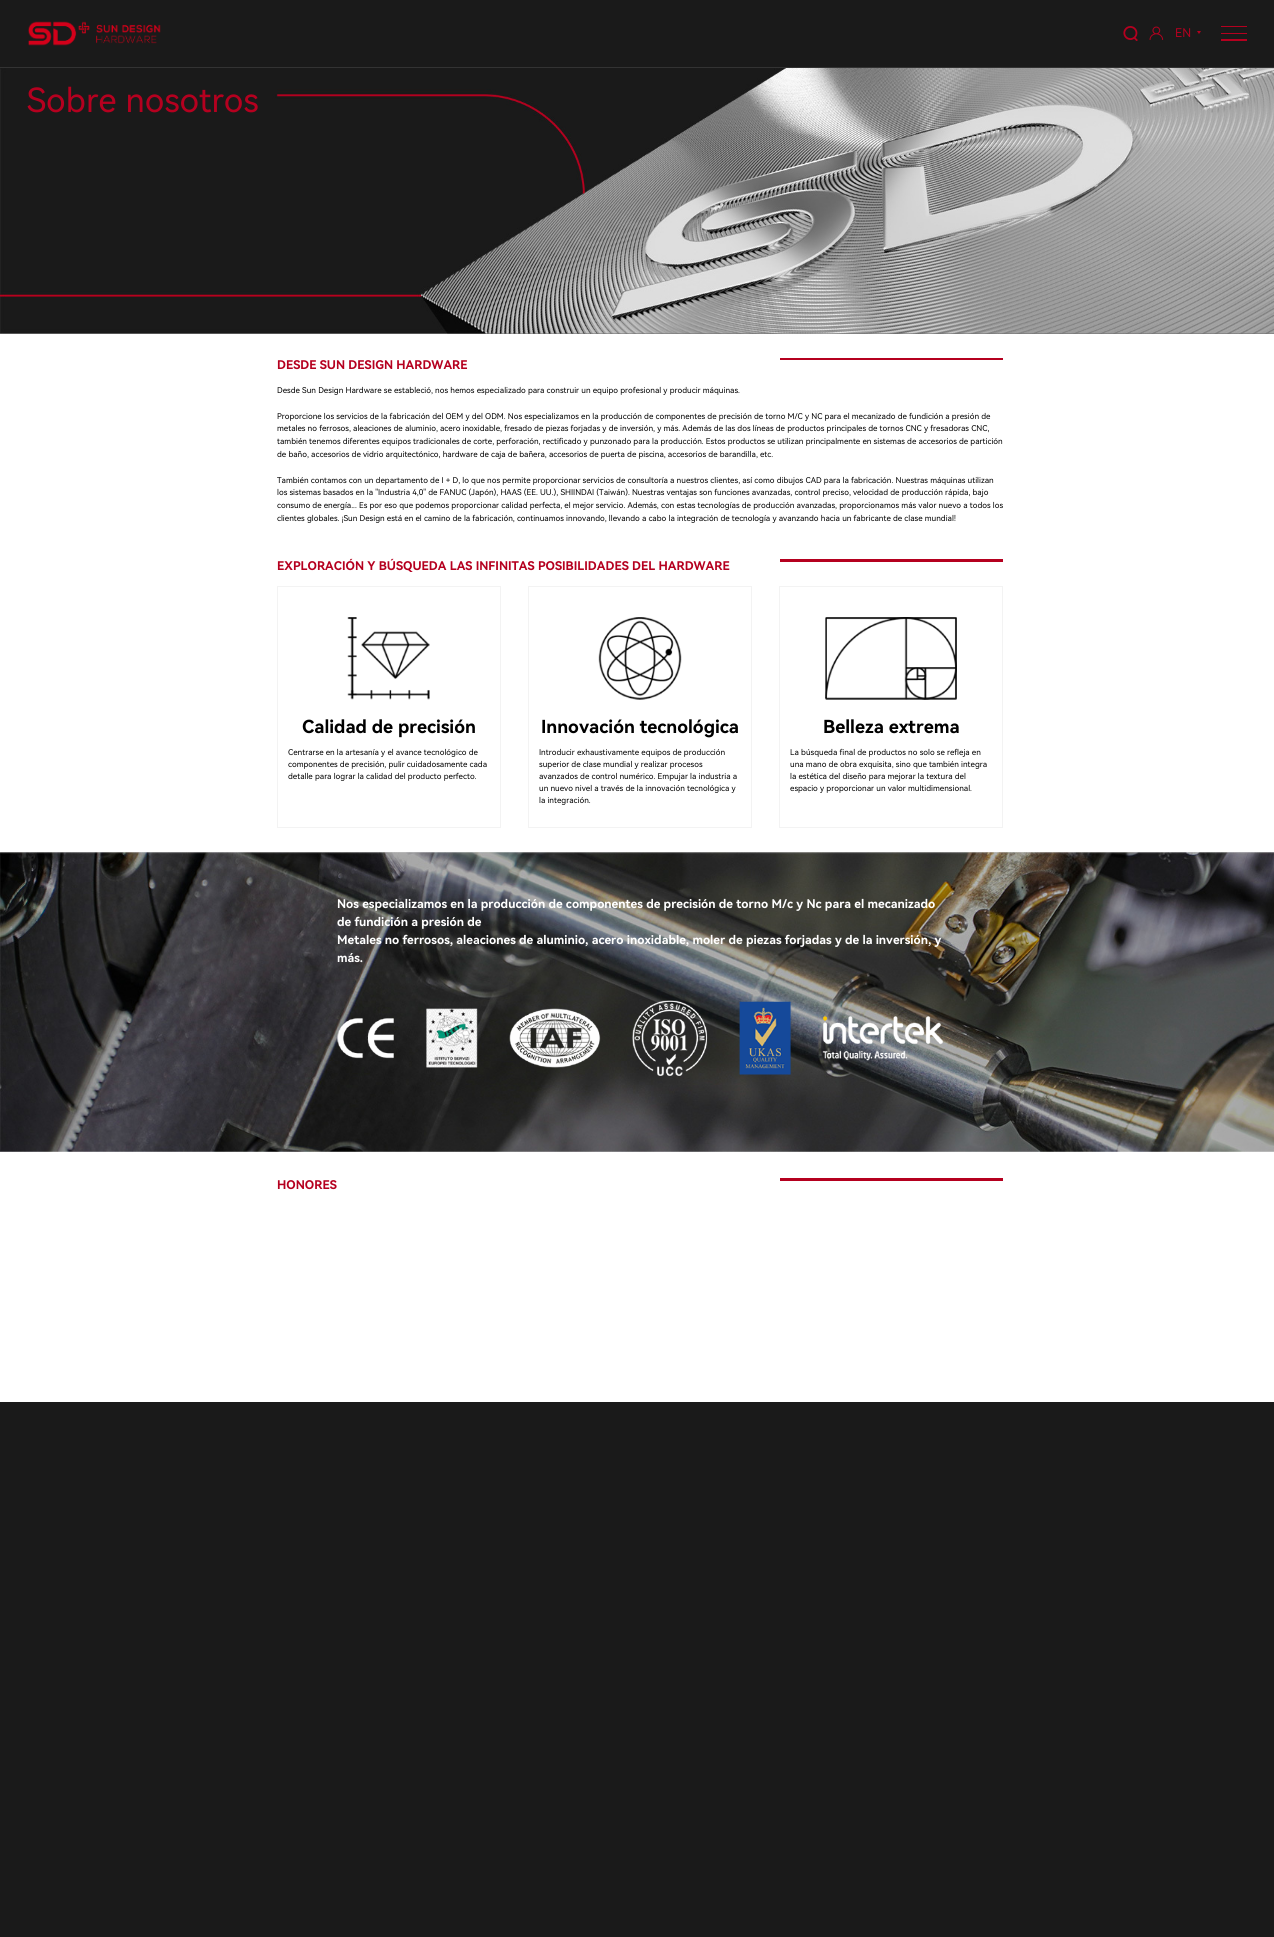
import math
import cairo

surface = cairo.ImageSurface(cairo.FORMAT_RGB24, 1274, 1937)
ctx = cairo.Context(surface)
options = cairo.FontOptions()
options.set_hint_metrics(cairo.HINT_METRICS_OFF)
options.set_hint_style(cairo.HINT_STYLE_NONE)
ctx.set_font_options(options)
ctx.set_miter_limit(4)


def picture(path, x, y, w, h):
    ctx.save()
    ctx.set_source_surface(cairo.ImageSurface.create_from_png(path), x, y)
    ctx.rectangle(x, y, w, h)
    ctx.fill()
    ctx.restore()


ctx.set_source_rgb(0.102, 0.102, 0.102)
ctx.paint()
picture("img1.png", 28, 21, 133, 25)
picture("img2.png", 1123, 26, 15, 15)
picture("img3.png", 1149, 26, 15, 14)
ctx.select_font_face("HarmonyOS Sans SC")
ctx.set_font_size(12)
ctx.set_source_rgb(0.71, 0, 0.122)
ctx.move_to(1175, 37)
ctx.show_text("EN")
ctx.new_path()
ctx.move_to(1197, 31)
ctx.line_to(1201, 31)
ctx.line_to(1199, 34)
ctx.close_path()
ctx.fill()
ctx.rectangle(1221, 26, 26, 1)
ctx.fill()
ctx.rectangle(1221, 33, 26, 1)
ctx.fill()
ctx.rectangle(1221, 39, 26, 2)
ctx.fill()
ctx.set_source_rgb(1, 1, 1)
ctx.rectangle(0, 334, 1274, 1068)
ctx.fill()
ctx.set_source_rgb(0.2, 0.2, 0.2)
ctx.rectangle(0, 67, 1274, 1)
ctx.fill()
picture("img4.png", 0, 68, 1274, 266)
ctx.set_font_size(33.25)
ctx.set_source_rgb(0.71, 0, 0.122)
ctx.move_to(27, 112)
ctx.show_text("Sobre nosotros")
ctx.rectangle(780, 358, 223, 2)
ctx.fill()
ctx.select_font_face("HarmonyOS Sans SC", cairo.FONT_SLANT_NORMAL, cairo.FONT_WEIGHT_BOLD)
ctx.set_font_size(12)
ctx.move_to(277, 369)
ctx.show_text("DESDE SUN DESIGN HARDWARE")
ctx.select_font_face("HarmonyOS Sans SC")
ctx.set_font_size(8)
ctx.set_source_rgb(0, 0, 0)
ctx.move_to(277, 393)
ctx.show_text("Desde Sun Design Hardware se estableció, nos hemos especializado para construir un equipo profesional y producir máquinas.")
ctx.move_to(277, 419)
ctx.show_text("Proporcione los servicios de la fabricación del OEM y del ODM. Nos especializamos en la producción de componentes de precisión de torno M/C y NC para el mecanizado de fundición a presión de")
ctx.move_to(277, 431)
ctx.show_text("metales no ferrosos, aleaciones de aluminio, acero inoxidable, fresado de piezas forjadas y de inversión, y más. Además de las dos líneas de productos principales de tornos CNC y fresadoras CNC,")
ctx.move_to(277, 444)
ctx.show_text("también tenemos diferentes equipos tradicionales de corte, perforación, rectificado y punzonado para la producción. Estos productos se utilizan principalmente en sistemas de accesorios de partición")
ctx.move_to(277, 457)
ctx.show_text("de baño, accesorios de vidrio arquitectónico, hardware de caja de bañera, accesorios de puerta de piscina, accesorios de barandilla, etc.")
ctx.move_to(277, 483)
ctx.show_text("También contamos con un departamento de I + D, lo que nos permite proporcionar servicios de consultoría a nuestros clientes, así como dibujos CAD para la fabricación. Nuestras máquinas utilizan")
ctx.move_to(277, 495)
ctx.show_text("los sistemas basados en la \"Industria 4,0\" de FANUC (Japón), HAAS (EE. UU.), SHIINDAI (Taiwán). Nuestras ventajas son funciones avanzadas, control preciso, velocidad de producción rápida, bajo")
ctx.move_to(277, 508)
ctx.show_text("consumo de energía... Es por eso que podemos proporcionar calidad perfecta, el mejor servicio. Además, con estas tecnologías de producción avanzadas, proporcionamos más valor nuevo a todos los")
ctx.move_to(277, 521)
ctx.show_text("clientes globales. ¡Sun Design está en el camino de la fabricación, continuamos innovando, llevando a cabo la integración de tecnología y avanzando hacia un fabricante de clase mundial!")
ctx.select_font_face("HarmonyOS Sans SC", cairo.FONT_SLANT_NORMAL, cairo.FONT_WEIGHT_BOLD)
ctx.set_font_size(12)
ctx.set_source_rgb(0.71, 0, 0.122)
ctx.move_to(277, 570)
ctx.show_text("EXPLORACIÓN Y BÚSQUEDA LAS INFINITAS POSIBILIDADES DEL HARDWARE")
ctx.rectangle(780, 559, 223, 3)
ctx.fill()
ctx.rectangle(277.5, 586.5, 223, 241)
ctx.set_source_rgb(0.953, 0.953, 0.953)
ctx.set_line_width(1)
ctx.stroke()
picture("img5.png", 347, 617, 83, 83)
ctx.set_font_size(18)
ctx.set_source_rgb(0, 0, 0)
ctx.move_to(302, 733)
ctx.show_text("Calidad de precisión")
ctx.select_font_face("HarmonyOS Sans SC")
ctx.set_font_size(8)
ctx.move_to(288, 755)
ctx.show_text("Centrarse en la artesanía y el avance tecnológico de")
ctx.move_to(288, 767)
ctx.show_text("componentes de precisión, pulir cuidadosamente cada")
ctx.move_to(288, 779)
ctx.show_text("detalle para lograr la calidad del producto perfecto.")
ctx.rectangle(528.5, 586.5, 223, 241)
ctx.set_source_rgb(0.953, 0.953, 0.953)
ctx.stroke()
picture("img6.png", 598, 617, 84, 83)
ctx.select_font_face("HarmonyOS Sans SC", cairo.FONT_SLANT_NORMAL, cairo.FONT_WEIGHT_BOLD)
ctx.set_font_size(18)
ctx.set_source_rgb(0, 0, 0)
ctx.move_to(541, 733)
ctx.show_text("Innovación tecnológica")
ctx.select_font_face("HarmonyOS Sans SC")
ctx.set_font_size(8)
ctx.move_to(539, 755)
ctx.show_text("Introducir exhaustivamente equipos de producción")
ctx.move_to(539, 767)
ctx.show_text("superior de clase mundial y realizar procesos")
ctx.move_to(539, 779)
ctx.show_text("avanzados de control numérico. Empujar la industria a")
ctx.move_to(539, 791)
ctx.show_text("un nuevo nivel a través de la innovación tecnológica y")
ctx.move_to(539, 803)
ctx.show_text("la integración.")
ctx.rectangle(779.5, 586.5, 223, 241)
ctx.set_source_rgb(0.953, 0.953, 0.953)
ctx.stroke()
picture("img7.png", 825, 617, 132, 83)
ctx.select_font_face("HarmonyOS Sans SC", cairo.FONT_SLANT_NORMAL, cairo.FONT_WEIGHT_BOLD)
ctx.set_font_size(18)
ctx.set_source_rgb(0, 0, 0)
ctx.move_to(823, 733)
ctx.show_text("Belleza extrema")
ctx.select_font_face("HarmonyOS Sans SC")
ctx.set_font_size(8)
ctx.move_to(790, 755)
ctx.show_text("La búsqueda final de productos no solo se refleja en")
ctx.move_to(790, 767)
ctx.show_text("una mano de obra exquisita, sino que también integra")
ctx.move_to(790, 779)
ctx.show_text("la estética del diseño para mejorar la textura del")
ctx.move_to(790, 791)
ctx.show_text("espacio y proporcionar un valor multidimensional.")
picture("img8.png", 0, 852, 1274, 300)
ctx.select_font_face("HarmonyOS Sans SC", cairo.FONT_SLANT_NORMAL, cairo.FONT_WEIGHT_BOLD)
ctx.set_font_size(12)
ctx.set_source_rgb(1, 1, 1)
ctx.move_to(337, 908)
ctx.show_text("Nos especializamos en la producción de componentes de precisión de torno M/c y Nc para el mecanizado")
ctx.move_to(337, 926)
ctx.show_text("de fundición a presión de")
ctx.move_to(337, 944)
ctx.show_text("Metales no ferrosos, aleaciones de aluminio, acero inoxidable, moler de piezas forjadas y de la inversión, y")
ctx.move_to(337, 962)
ctx.show_text("más.")
picture("img9.png", 337, 1000, 606, 76)
ctx.set_source_rgb(0.71, 0, 0.122)
ctx.rectangle(780, 1178, 223, 3)
ctx.fill()
ctx.move_to(277, 1189)
ctx.show_text("HONORES")
surface.write_to_png("page.png")
